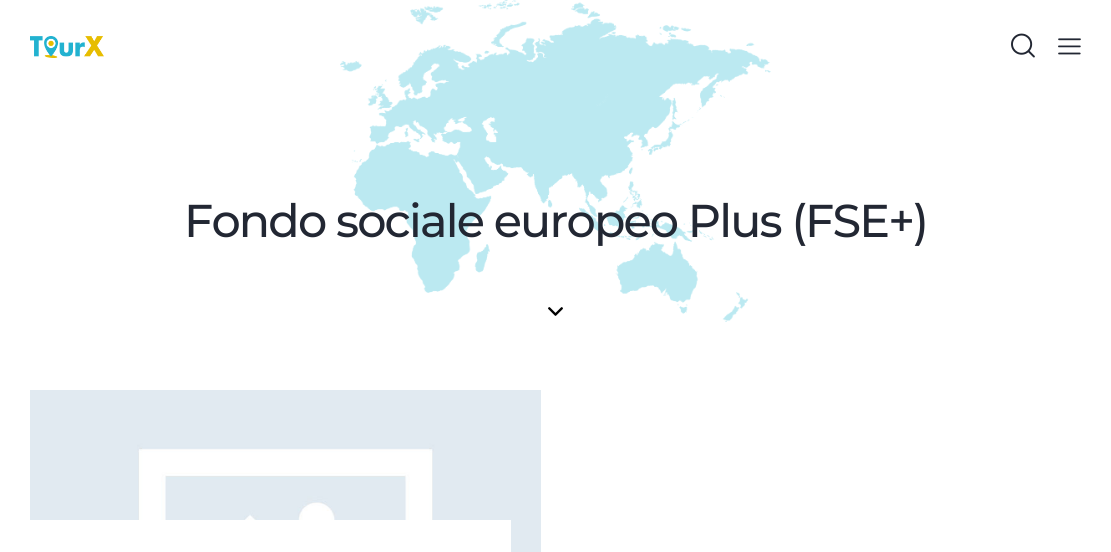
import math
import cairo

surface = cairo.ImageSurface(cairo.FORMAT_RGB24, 1111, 552)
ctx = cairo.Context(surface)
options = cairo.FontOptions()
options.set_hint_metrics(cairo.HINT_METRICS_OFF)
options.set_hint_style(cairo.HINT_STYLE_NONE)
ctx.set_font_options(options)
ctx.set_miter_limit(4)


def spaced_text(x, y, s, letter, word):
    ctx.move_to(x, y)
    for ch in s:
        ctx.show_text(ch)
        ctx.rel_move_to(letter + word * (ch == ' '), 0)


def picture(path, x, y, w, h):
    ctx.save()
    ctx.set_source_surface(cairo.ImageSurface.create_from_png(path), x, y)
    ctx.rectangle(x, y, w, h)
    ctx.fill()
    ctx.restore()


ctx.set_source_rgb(1, 1, 1)
ctx.paint()
picture("img1.png", 340, 0, 431, 322)
picture("img2.png", 30, 36, 74, 22)
picture("img3.png", 1011, 33, 24, 25)
picture("img4.png", 1058, 38, 23, 17)
ctx.select_font_face("Montserrat Medium")
ctx.set_font_size(46)
ctx.set_source_rgb(0.133, 0.153, 0.2)
spaced_text(184, 237, "Fondo sociale europeo Plus (FSE+)", -1.8, 0)
picture("img5.png", 548, 307, 15, 9)
picture("img6.png", 30, 390, 511, 162)
ctx.set_source_rgb(1, 1, 1)
ctx.rectangle(30, 520, 481, 32)
ctx.fill()
surface.write_to_png("page.png")
